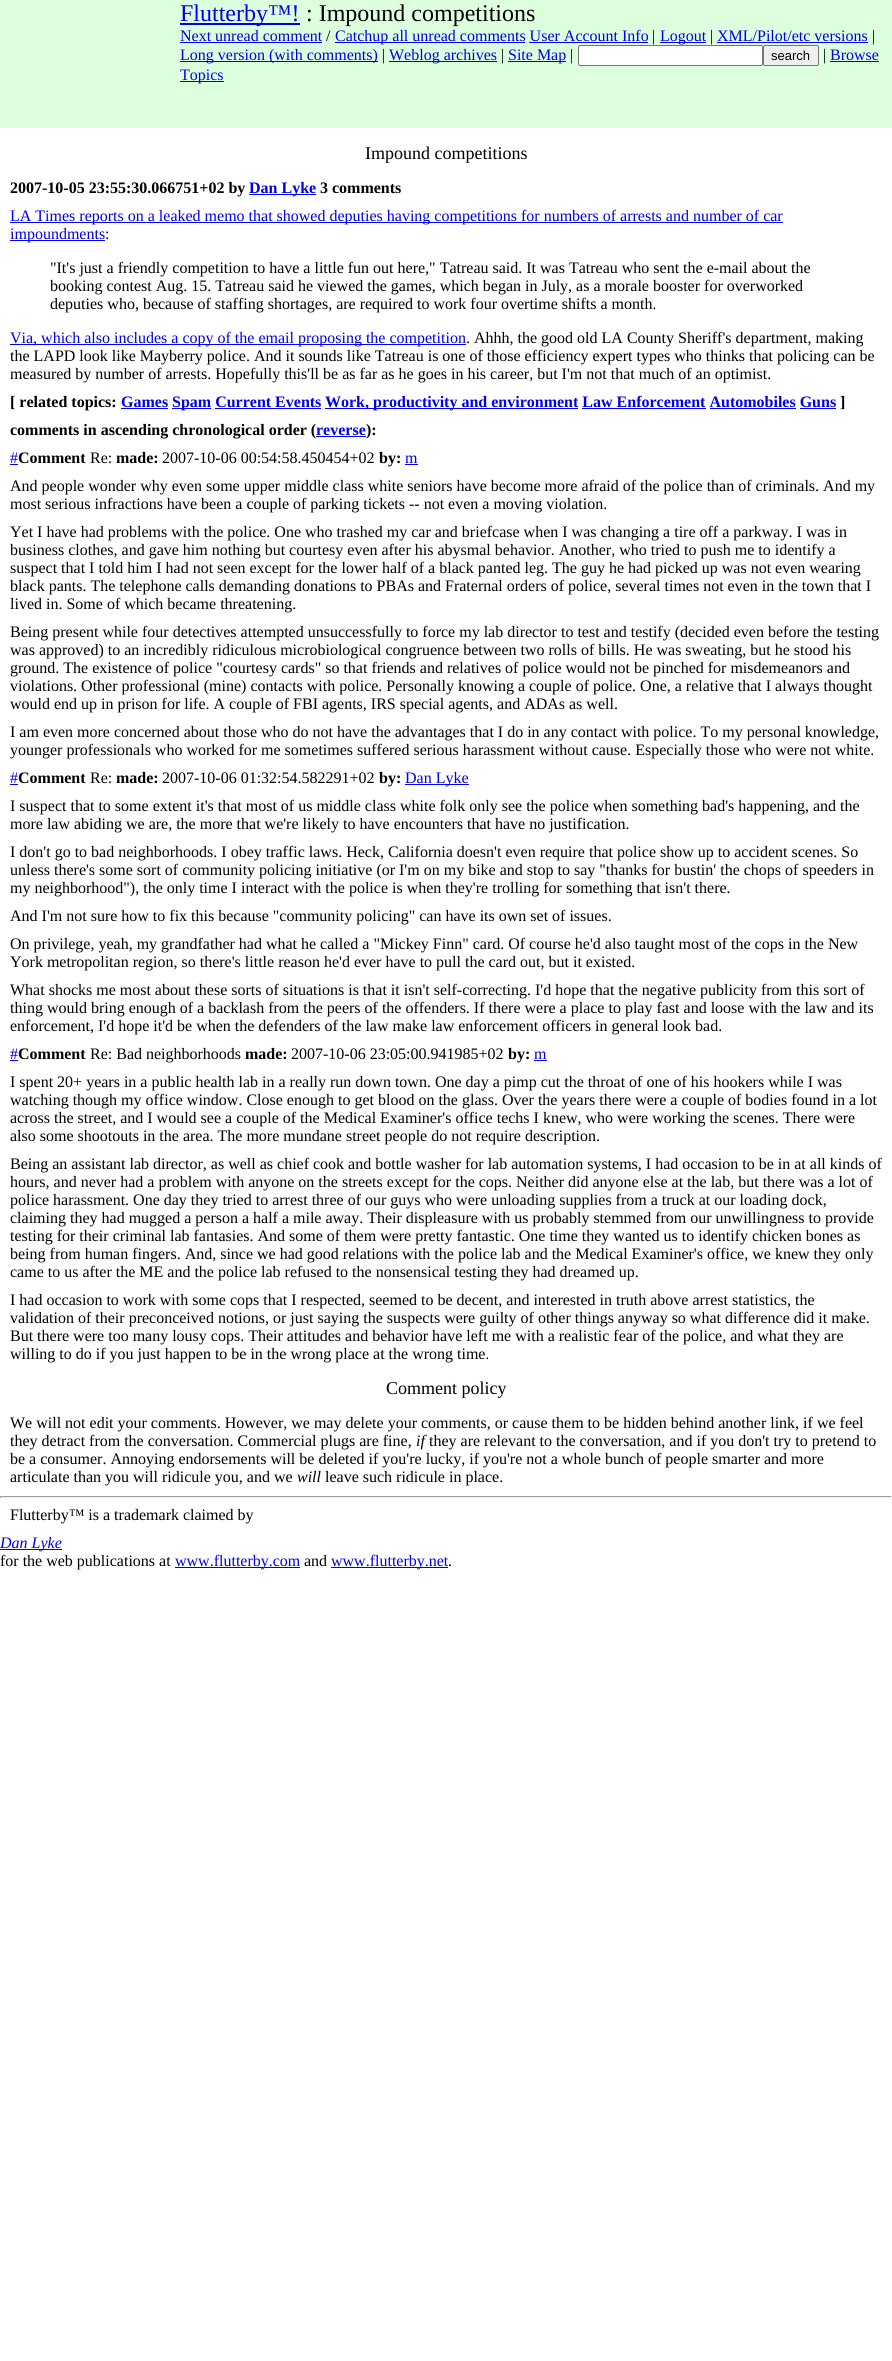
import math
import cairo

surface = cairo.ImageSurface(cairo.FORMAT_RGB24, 892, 2361)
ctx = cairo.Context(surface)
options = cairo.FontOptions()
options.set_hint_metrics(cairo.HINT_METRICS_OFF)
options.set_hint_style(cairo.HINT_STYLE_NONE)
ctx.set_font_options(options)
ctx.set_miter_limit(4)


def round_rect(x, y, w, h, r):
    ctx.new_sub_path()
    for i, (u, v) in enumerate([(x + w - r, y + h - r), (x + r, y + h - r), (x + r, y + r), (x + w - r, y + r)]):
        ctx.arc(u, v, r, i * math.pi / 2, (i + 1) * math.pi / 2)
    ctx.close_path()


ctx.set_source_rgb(1, 1, 1)
ctx.paint()
ctx.set_source_rgb(0.867, 1, 0.867)
ctx.rectangle(0, 0, 892, 128)
ctx.fill()
ctx.set_source_rgb(0, 0, 0.933)
ctx.rectangle(180, 23, 120, 2)
ctx.fill()
ctx.select_font_face("Liberation Serif")
ctx.set_font_size(24)
ctx.move_to(180, 21)
ctx.show_text("Flutterby™!")
ctx.set_source_rgb(0, 0, 0)
ctx.move_to(306, 21)
ctx.show_text(": Impound competitions")
ctx.set_font_size(16)
ctx.set_source_rgb(0, 0, 0.933)
ctx.move_to(180, 41)
ctx.show_text("Next unread comment")
ctx.rectangle(180, 42, 142, 1)
ctx.fill()
ctx.set_source_rgb(0, 0, 0)
ctx.move_to(326, 41)
ctx.show_text("/")
ctx.set_source_rgb(0, 0, 0.933)
ctx.rectangle(335, 42, 190, 1)
ctx.fill()
ctx.move_to(335, 41)
ctx.show_text("Catchup all unread comments User Account Info")
ctx.set_source_rgb(0, 0, 0)
ctx.move_to(652, 41)
ctx.show_text("|")
ctx.set_source_rgb(0, 0, 0.933)
ctx.rectangle(660, 42, 46, 1)
ctx.fill()
ctx.move_to(660, 41)
ctx.show_text("Logout")
ctx.set_source_rgb(0, 0, 0)
ctx.move_to(710, 41)
ctx.show_text("|")
ctx.set_source_rgb(0, 0, 0.933)
ctx.move_to(717, 41)
ctx.show_text("XML/Pilot/etc versions")
ctx.rectangle(717, 42, 151, 1)
ctx.fill()
ctx.set_source_rgb(0, 0, 0)
ctx.move_to(872, 41)
ctx.show_text("|")
ctx.set_source_rgb(0, 0, 0.933)
ctx.rectangle(529, 42, 119, 1)
ctx.fill()
ctx.rectangle(180, 61, 198, 1)
ctx.fill()
ctx.move_to(180, 60)
ctx.show_text("Long version (with comments)")
ctx.set_source_rgb(0, 0, 0)
ctx.move_to(382, 60)
ctx.show_text("|")
ctx.set_source_rgb(0, 0, 0.933)
ctx.rectangle(389, 61, 108, 1)
ctx.fill()
ctx.move_to(389, 60)
ctx.show_text("Weblog archives")
ctx.set_source_rgb(0, 0, 0)
ctx.move_to(501, 60)
ctx.show_text("|")
ctx.set_source_rgb(0, 0, 0.933)
ctx.rectangle(508, 61, 58, 1)
ctx.fill()
ctx.move_to(508, 60)
ctx.show_text("Site Map")
ctx.set_source_rgb(0, 0, 0)
ctx.move_to(570, 60)
ctx.show_text("|")
ctx.set_source_rgb(1, 1, 1)
round_rect(578.5, 45.5, 184, 20, 1.5)
ctx.fill_preserve()
ctx.set_source_rgb(0.463, 0.463, 0.463)
ctx.set_line_width(1)
ctx.stroke()
ctx.set_source_rgb(0.937, 0.937, 0.937)
round_rect(763.5, 45.5, 55, 20, 1.5)
ctx.fill_preserve()
ctx.set_source_rgb(0.463, 0.463, 0.463)
ctx.stroke()
ctx.select_font_face("Liberation Sans")
ctx.set_font_size(13)
ctx.set_source_rgb(0, 0, 0)
ctx.move_to(771, 60)
ctx.show_text("search")
ctx.select_font_face("Liberation Serif")
ctx.set_font_size(16)
ctx.move_to(823, 60)
ctx.show_text("|")
ctx.set_source_rgb(0, 0, 0.933)
ctx.move_to(830, 60)
ctx.show_text("Browse")
ctx.rectangle(830, 61, 49, 1)
ctx.fill()
ctx.rectangle(180, 81, 44, 1)
ctx.fill()
ctx.move_to(180, 80)
ctx.show_text("Topics")
ctx.set_font_size(18)
ctx.set_source_rgb(0, 0, 0)
ctx.move_to(365, 159)
ctx.show_text("Impound competitions")
ctx.select_font_face("Liberation Serif", cairo.FONT_SLANT_NORMAL, cairo.FONT_WEIGHT_BOLD)
ctx.set_font_size(16)
ctx.move_to(10, 193)
ctx.show_text("2007-10-05 23:55:30.066751+02 by")
ctx.set_source_rgb(0, 0, 0.933)
ctx.rectangle(249, 194, 67, 1)
ctx.fill()
ctx.move_to(249, 193)
ctx.show_text("Dan Lyke")
ctx.set_source_rgb(0, 0, 0)
ctx.move_to(320, 193)
ctx.show_text("3 comments")
ctx.set_source_rgb(0, 0, 0.933)
ctx.rectangle(10, 222, 773, 1)
ctx.fill()
ctx.select_font_face("Liberation Serif")
ctx.move_to(10, 221)
ctx.show_text("LA Times reports on a leaked memo that showed deputies having competitions for numbers of arrests and number of car")
ctx.rectangle(10, 240, 95, 1)
ctx.fill()
ctx.move_to(10, 239)
ctx.show_text("impoundments")
ctx.set_source_rgb(0, 0, 0)
ctx.move_to(105, 239)
ctx.show_text(":")
ctx.move_to(50, 273)
ctx.show_text("\"It's just a friendly competition to have a little fun out here,\" Tatreau said. It was Tatreau who sent the e-mail about the")
ctx.move_to(50, 291)
ctx.show_text("booking contest Aug. 15. Tatreau said he viewed the games, which began in July, as a morale booster for overworked")
ctx.move_to(50, 309)
ctx.show_text("deputies who, because of staffing shortages, are required to work four overtime shifts a month.")
ctx.set_source_rgb(0, 0, 0.933)
ctx.rectangle(10, 344, 456, 1)
ctx.fill()
ctx.move_to(10, 343)
ctx.show_text("Via, which also includes a copy of the email proposing the competition")
ctx.set_source_rgb(0, 0, 0)
ctx.move_to(466, 343)
ctx.show_text(". Ahhh, the good old LA County Sheriff's department, making")
ctx.move_to(10, 361)
ctx.show_text("the LAPD look like Mayberry police. And it sounds like Tatreau is one of those efficiency expert types who thinks that policing can be")
ctx.move_to(10, 379)
ctx.show_text("measured by number of arrests. Hopefully this'll be as far as he goes in his career, but I'm not that much of an optimist.")
ctx.select_font_face("Liberation Serif", cairo.FONT_SLANT_NORMAL, cairo.FONT_WEIGHT_BOLD)
ctx.move_to(10, 407)
ctx.show_text("[ related topics:")
ctx.set_source_rgb(0, 0, 0.933)
ctx.move_to(121, 407)
ctx.show_text("Games")
ctx.rectangle(121, 408, 47, 1)
ctx.fill()
ctx.rectangle(172, 408, 39, 1)
ctx.fill()
ctx.move_to(172, 407)
ctx.show_text("Spam Current Events")
ctx.rectangle(215, 408, 106, 1)
ctx.fill()
ctx.rectangle(325, 408, 253, 1)
ctx.fill()
ctx.move_to(325, 407)
ctx.show_text("Work, productivity and environment Law Enforcement Automobiles Guns")
ctx.rectangle(582, 408, 124, 1)
ctx.fill()
ctx.rectangle(710, 408, 86, 1)
ctx.fill()
ctx.rectangle(800, 408, 36, 1)
ctx.fill()
ctx.set_source_rgb(0, 0, 0)
ctx.move_to(840, 407)
ctx.show_text("]")
ctx.move_to(10, 435)
ctx.show_text("comments in ascending chronological order (")
ctx.set_source_rgb(0, 0, 0.933)
ctx.move_to(316, 435)
ctx.show_text("reverse")
ctx.rectangle(316, 436, 50, 1)
ctx.fill()
ctx.set_source_rgb(0, 0, 0)
ctx.move_to(366, 435)
ctx.show_text("):")
ctx.select_font_face("Liberation Serif")
ctx.set_source_rgb(0, 0, 0.933)
ctx.move_to(10, 463)
ctx.show_text("#")
ctx.rectangle(10, 464, 8, 1)
ctx.fill()
ctx.select_font_face("Liberation Serif", cairo.FONT_SLANT_NORMAL, cairo.FONT_WEIGHT_BOLD)
ctx.set_source_rgb(0, 0, 0)
ctx.move_to(18, 463)
ctx.show_text("Comment")
ctx.select_font_face("Liberation Serif")
ctx.move_to(90, 463)
ctx.show_text("Re:")
ctx.select_font_face("Liberation Serif", cairo.FONT_SLANT_NORMAL, cairo.FONT_WEIGHT_BOLD)
ctx.move_to(116, 463)
ctx.show_text("made:")
ctx.select_font_face("Liberation Serif")
ctx.move_to(162, 463)
ctx.show_text("2007-10-06 00:54:58.450454+02")
ctx.select_font_face("Liberation Serif", cairo.FONT_SLANT_NORMAL, cairo.FONT_WEIGHT_BOLD)
ctx.move_to(379, 463)
ctx.show_text("by:")
ctx.select_font_face("Liberation Serif")
ctx.set_source_rgb(0, 0, 0.933)
ctx.move_to(405, 463)
ctx.show_text("m")
ctx.rectangle(405, 464, 13, 1)
ctx.fill()
ctx.set_source_rgb(0, 0, 0)
ctx.move_to(10, 491)
ctx.show_text("And people wonder why even some upper middle class white seniors have become more afraid of the police than of criminals. And my")
ctx.move_to(10, 509)
ctx.show_text("most serious infractions have been a couple of parking tickets -- not even a moving violation.")
ctx.move_to(10, 537)
ctx.show_text("Yet I have had problems with the police. One who trashed my car and briefcase when I was changing a tire off a parkway. I was in")
ctx.move_to(10, 555)
ctx.show_text("business clothes, and gave him nothing but courtesy even after his abysmal behavior. Another, who tried to push me to identify a")
ctx.move_to(10, 573)
ctx.show_text("suspect that I told him I had not seen except for the lower half of a black panted leg. The guy he had picked up was not even wearing")
ctx.move_to(10, 591)
ctx.show_text("black pants. The telephone calls demanding donations to PBAs and Fraternal orders of police, several times not even in the town that I")
ctx.move_to(10, 609)
ctx.show_text("lived in. Some of which became threatening.")
ctx.move_to(10, 637)
ctx.show_text("Being present while four detectives attempted unsuccessfully to force my lab director to test and testify (decided even before the testing")
ctx.move_to(10, 655)
ctx.show_text("was approved) to an incredibly ridiculous microbiological congruence between two rolls of bills. He was sweating, but he stood his")
ctx.move_to(10, 673)
ctx.show_text("ground. The existence of police \"courtesy cards\" so that friends and relatives of police would not be pinched for misdemeanors and")
ctx.move_to(10, 691)
ctx.show_text("violations. Other professional (mine) contacts with police. Personally knowing a couple of police. One, a relative that I always thought")
ctx.move_to(10, 709)
ctx.show_text("would end up in prison for life. A couple of FBI agents, IRS special agents, and ADAs as well.")
ctx.move_to(10, 737)
ctx.show_text("I am even more concerned about those who do not have the advantages that I do in any contact with police. To my personal knowledge,")
ctx.move_to(10, 755)
ctx.show_text("younger professionals who worked for me sometimes suffered serious harassment without cause. Especially those who were not white.")
ctx.set_source_rgb(0, 0, 0.933)
ctx.move_to(10, 783)
ctx.show_text("#")
ctx.rectangle(10, 784, 8, 1)
ctx.fill()
ctx.select_font_face("Liberation Serif", cairo.FONT_SLANT_NORMAL, cairo.FONT_WEIGHT_BOLD)
ctx.set_source_rgb(0, 0, 0)
ctx.move_to(18, 783)
ctx.show_text("Comment")
ctx.select_font_face("Liberation Serif")
ctx.move_to(90, 783)
ctx.show_text("Re:")
ctx.select_font_face("Liberation Serif", cairo.FONT_SLANT_NORMAL, cairo.FONT_WEIGHT_BOLD)
ctx.move_to(116, 783)
ctx.show_text("made:")
ctx.select_font_face("Liberation Serif")
ctx.move_to(162, 783)
ctx.show_text("2007-10-06 01:32:54.582291+02")
ctx.select_font_face("Liberation Serif", cairo.FONT_SLANT_NORMAL, cairo.FONT_WEIGHT_BOLD)
ctx.move_to(379, 783)
ctx.show_text("by:")
ctx.set_source_rgb(0, 0, 0.933)
ctx.rectangle(405, 784, 64, 1)
ctx.fill()
ctx.select_font_face("Liberation Serif")
ctx.move_to(405, 783)
ctx.show_text("Dan Lyke")
ctx.set_source_rgb(0, 0, 0)
ctx.move_to(10, 811)
ctx.show_text("I suspect that to some extent it's that most of us middle class white folk only see the police when something bad's happening, and the")
ctx.move_to(10, 829)
ctx.show_text("more law abiding we are, the more that we're likely to have encounters that have no justification.")
ctx.move_to(10, 857)
ctx.show_text("I don't go to bad neighborhoods. I obey traffic laws. Heck, California doesn't even require that police show up to accident scenes. So")
ctx.move_to(10, 875)
ctx.show_text("unless there's some sort of community policing initiative (or I'm on my bike and stop to say \"thanks for bustin' the chops of speeders in")
ctx.move_to(10, 893)
ctx.show_text("my neighborhood\"), the only time I interact with the police is when they're trolling for something that isn't there.")
ctx.move_to(10, 921)
ctx.show_text("And I'm not sure how to fix this because \"community policing\" can have its own set of issues.")
ctx.move_to(10, 949)
ctx.show_text("On privilege, yeah, my grandfather had what he called a \"Mickey Finn\" card. Of course he'd also taught most of the cops in the New")
ctx.move_to(10, 967)
ctx.show_text("York metropolitan region, so there's little reason he'd ever have to pull the card out, but it existed.")
ctx.move_to(10, 995)
ctx.show_text("What shocks me most about these sorts of situations is that it isn't self-correcting. I'd hope that the negative publicity from this sort of")
ctx.move_to(10, 1013)
ctx.show_text("thing would bring enough of a backlash from the peers of the offenders. If there were a place to play fast and loose with the law and its")
ctx.move_to(10, 1031)
ctx.show_text("enforcement, I'd hope it'd be when the defenders of the law make law enforcement officers in general look bad.")
ctx.set_source_rgb(0, 0, 0.933)
ctx.move_to(10, 1059)
ctx.show_text("#")
ctx.rectangle(10, 1060, 8, 1)
ctx.fill()
ctx.select_font_face("Liberation Serif", cairo.FONT_SLANT_NORMAL, cairo.FONT_WEIGHT_BOLD)
ctx.set_source_rgb(0, 0, 0)
ctx.move_to(18, 1059)
ctx.show_text("Comment")
ctx.select_font_face("Liberation Serif")
ctx.move_to(90, 1059)
ctx.show_text("Re: Bad neighborhoods")
ctx.select_font_face("Liberation Serif", cairo.FONT_SLANT_NORMAL, cairo.FONT_WEIGHT_BOLD)
ctx.move_to(245, 1059)
ctx.show_text("made:")
ctx.select_font_face("Liberation Serif")
ctx.move_to(291, 1059)
ctx.show_text("2007-10-06 23:05:00.941985+02")
ctx.select_font_face("Liberation Serif", cairo.FONT_SLANT_NORMAL, cairo.FONT_WEIGHT_BOLD)
ctx.move_to(508, 1059)
ctx.show_text("by:")
ctx.select_font_face("Liberation Serif")
ctx.set_source_rgb(0, 0, 0.933)
ctx.move_to(534, 1059)
ctx.show_text("m")
ctx.rectangle(534, 1060, 13, 1)
ctx.fill()
ctx.set_source_rgb(0, 0, 0)
ctx.move_to(10, 1087)
ctx.show_text("I spent 20+ years in a public health lab in a really run down town. One day a pimp cut the throat of one of his hookers while I was")
ctx.move_to(10, 1105)
ctx.show_text("watching though my office window. Close enough to get blood on the glass. Over the years there were a couple of bodies found in a lot")
ctx.move_to(10, 1123)
ctx.show_text("across the street, and I would see a couple of the Medical Examiner's office techs I knew, who were working the scenes. There were")
ctx.move_to(10, 1141)
ctx.show_text("also some shootouts in the area. The more mundane street people do not require description.")
ctx.move_to(10, 1169)
ctx.show_text("Being an assistant lab director, as well as chief cook and bottle washer for lab automation systems, I had occasion to be in at all kinds of")
ctx.move_to(10, 1187)
ctx.show_text("hours, and never had a problem with anyone on the streets except for the cops. Neither did anyone else at the lab, but there was a lot of")
ctx.move_to(10, 1205)
ctx.show_text("police harassment. One day they tried to arrest three of our guys who were unloading supplies from a truck at our loading dock,")
ctx.move_to(10, 1223)
ctx.show_text("claiming they had mugged a person a half a mile away. Their displeasure with us probably stemmed from our unwillingness to provide")
ctx.move_to(10, 1241)
ctx.show_text("testing for their criminal lab fantasies. And some of them were pretty fantastic. One time they wanted us to identify chicken bones as")
ctx.move_to(10, 1259)
ctx.show_text("being from human fingers. And, since we had good relations with the police lab and the Medical Examiner's office, we knew they only")
ctx.move_to(10, 1277)
ctx.show_text("came to us after the ME and the police lab refused to the nonsensical testing they had dreamed up.")
ctx.move_to(10, 1305)
ctx.show_text("I had occasion to work with some cops that I respected, seemed to be decent, and interested in truth above arrest statistics, the")
ctx.move_to(10, 1323)
ctx.show_text("validation of their preconceived notions, or just saying the suspects were guilty of other things anyway so what difference did it make.")
ctx.move_to(10, 1341)
ctx.show_text("But there were too many lousy cops. Their attitudes and behavior have left me with a realistic fear of the police, and what they are")
ctx.move_to(10, 1359)
ctx.show_text("willing to do if you just happen to be in the wrong place at the wrong time.")
ctx.set_font_size(18)
ctx.move_to(386, 1394)
ctx.show_text("Comment policy")
ctx.set_font_size(16)
ctx.move_to(10, 1428)
ctx.show_text("We will not edit your comments. However, we may delete your comments, or cause them to be hidden behind another link, if we feel")
ctx.move_to(10, 1446)
ctx.show_text("they detract from the conversation. Commercial plugs are fine,")
ctx.select_font_face("Liberation Serif", cairo.FONT_SLANT_ITALIC)
ctx.move_to(416, 1446)
ctx.show_text("if")
ctx.select_font_face("Liberation Serif")
ctx.move_to(429, 1446)
ctx.show_text("they are relevant to the conversation, and if you don't try to pretend to")
ctx.move_to(10, 1464)
ctx.show_text("be a consumer. Annoying endorsements will be deleted if you're lucky, if you're not a whole bunch of people smarter and more")
ctx.move_to(10, 1482)
ctx.show_text("articulate than you will ridicule you, and we")
ctx.select_font_face("Liberation Serif", cairo.FONT_SLANT_ITALIC)
ctx.move_to(297, 1482)
ctx.show_text("will")
ctx.select_font_face("Liberation Serif")
ctx.move_to(325, 1482)
ctx.show_text("leave such ridicule in place.")
ctx.set_source_rgb(0.624, 0.624, 0.624)
ctx.rectangle(0, 1496, 892, 1)
ctx.fill()
ctx.set_source_rgb(0.933, 0.933, 0.933)
ctx.rectangle(891, 1496, 1, 2)
ctx.fill()
ctx.rectangle(0, 1497, 892, 1)
ctx.fill()
ctx.set_source_rgb(0.624, 0.624, 0.624)
ctx.rectangle(0, 1496, 1, 2)
ctx.fill()
ctx.set_source_rgb(0, 0, 0)
ctx.move_to(10, 1520)
ctx.show_text("Flutterby™ is a trademark claimed by")
ctx.set_source_rgb(0, 0, 0.933)
ctx.rectangle(0, 1549, 62, 1)
ctx.fill()
ctx.select_font_face("Liberation Serif", cairo.FONT_SLANT_ITALIC)
ctx.move_to(0, 1548)
ctx.show_text("Dan Lyke")
ctx.select_font_face("Liberation Serif")
ctx.set_source_rgb(0, 0, 0)
ctx.move_to(0, 1566)
ctx.show_text("for the web publications at")
ctx.set_source_rgb(0, 0, 0.933)
ctx.rectangle(175, 1567, 125, 1)
ctx.fill()
ctx.move_to(175, 1566)
ctx.show_text("www.flutterby.com")
ctx.set_source_rgb(0, 0, 0)
ctx.move_to(304, 1566)
ctx.show_text("and")
ctx.set_source_rgb(0, 0, 0.933)
ctx.rectangle(331, 1567, 117, 1)
ctx.fill()
ctx.move_to(331, 1566)
ctx.show_text("www.flutterby.net")
ctx.set_source_rgb(0, 0, 0)
ctx.move_to(448, 1566)
ctx.show_text(".")
surface.write_to_png("page.png")
